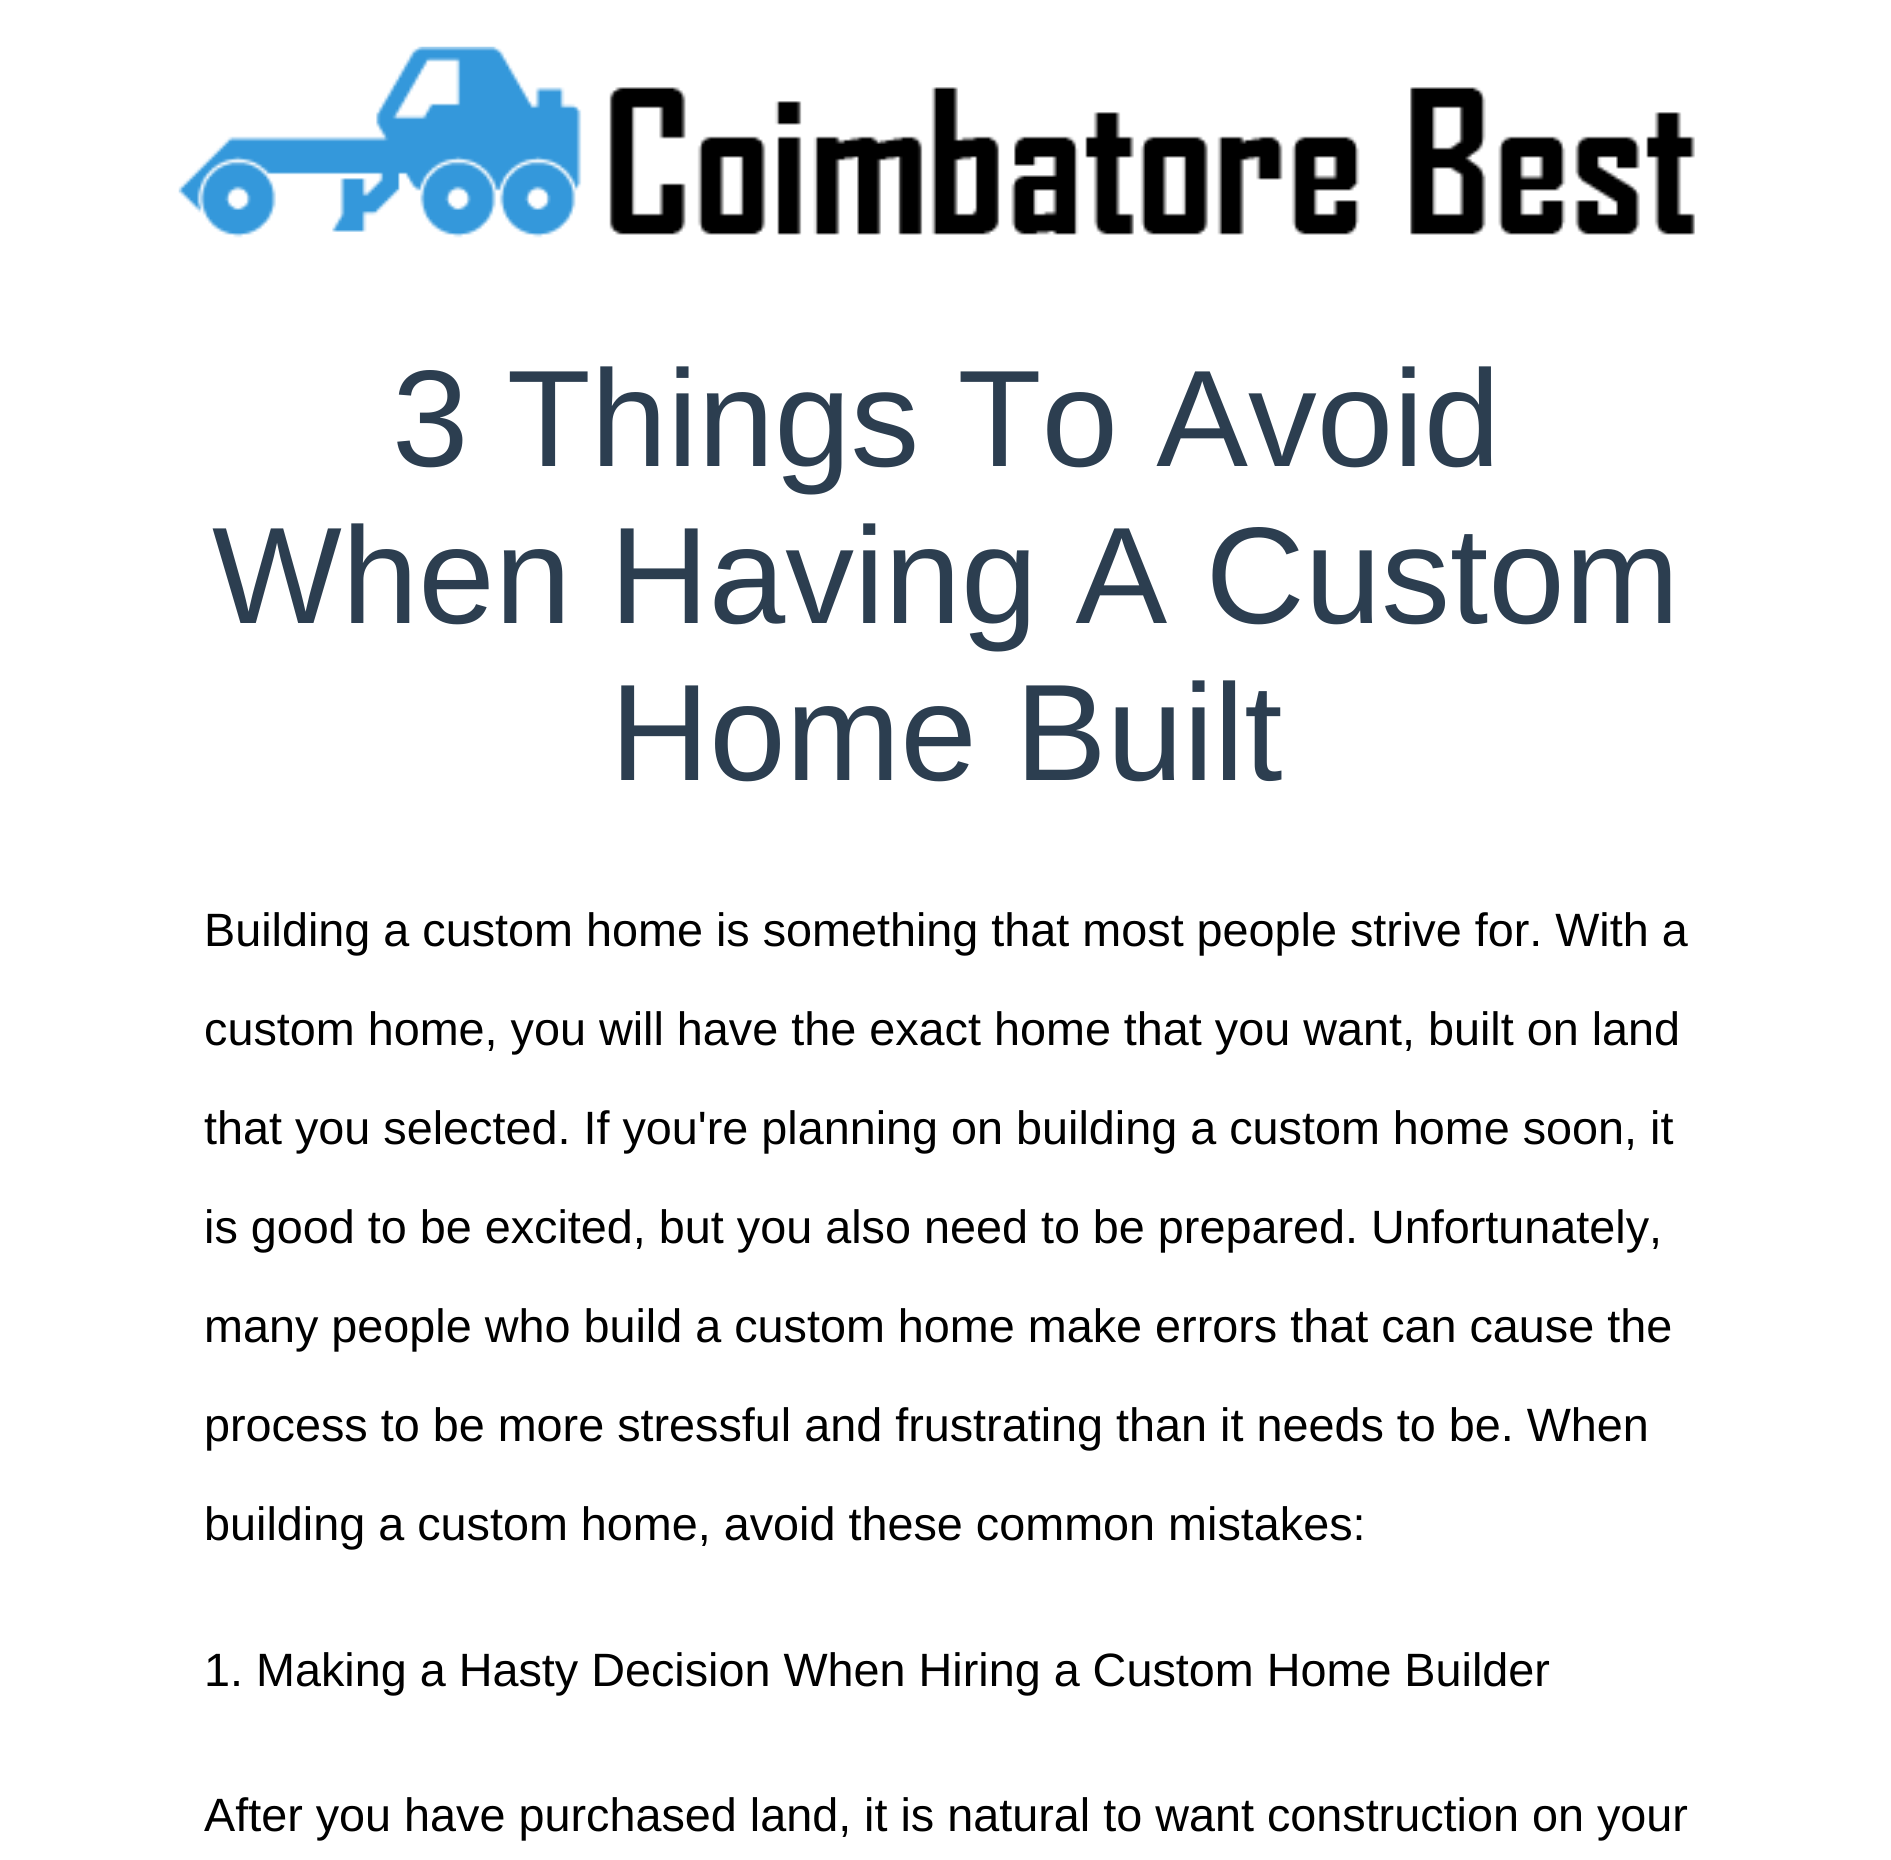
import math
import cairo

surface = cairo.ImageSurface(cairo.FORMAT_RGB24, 1891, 1860)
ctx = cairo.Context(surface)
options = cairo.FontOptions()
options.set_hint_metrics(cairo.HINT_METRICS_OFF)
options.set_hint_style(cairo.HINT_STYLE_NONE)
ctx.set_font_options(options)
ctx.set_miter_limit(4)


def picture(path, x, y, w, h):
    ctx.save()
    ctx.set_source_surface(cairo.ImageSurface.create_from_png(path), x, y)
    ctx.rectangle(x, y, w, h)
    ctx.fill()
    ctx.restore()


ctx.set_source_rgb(1, 1, 1)
ctx.paint()
picture("img1.png", 178, 46, 1517, 192)
ctx.select_font_face("Liberation Sans")
ctx.set_font_size(137.5)
ctx.set_source_rgb(0.173, 0.243, 0.314)
ctx.move_to(392, 466)
ctx.show_text("3 Things To Avoid")
ctx.move_to(212, 623)
ctx.show_text("When Having A Custom")
ctx.move_to(610, 780)
ctx.show_text("Home Built")
ctx.set_font_size(46.75)
ctx.set_source_rgb(0, 0, 0)
ctx.move_to(204, 946)
ctx.show_text("Building a custom home is something that most people strive for. With a")
ctx.move_to(204, 1045)
ctx.show_text("custom home, you will have the exact home that you want, built on land")
ctx.move_to(204, 1144)
ctx.show_text("that you selected. If you're planning on building a custom home soon, it")
ctx.move_to(204, 1243)
ctx.show_text("is good to be excited, but you also need to be prepared. Unfortunately,")
ctx.move_to(204, 1342)
ctx.show_text("many people who build a custom home make errors that can cause the")
ctx.move_to(204, 1441)
ctx.show_text("process to be more stressful and frustrating than it needs to be. When")
ctx.move_to(204, 1540)
ctx.show_text("building a custom home, avoid these common mistakes:")
ctx.move_to(204, 1686)
ctx.show_text("1. Making a Hasty Decision When Hiring a Custom Home Builder")
ctx.move_to(204, 1831)
ctx.show_text("After you have purchased land, it is natural to want construction on your")
surface.write_to_png("page.png")
